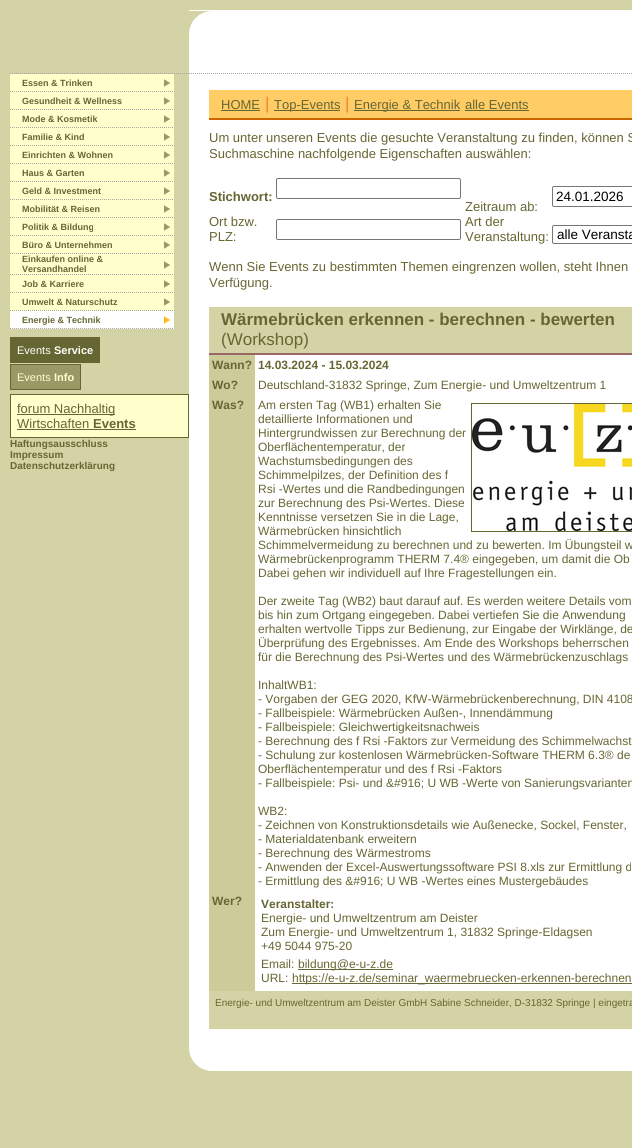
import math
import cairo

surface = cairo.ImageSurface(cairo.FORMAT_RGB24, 632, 1148)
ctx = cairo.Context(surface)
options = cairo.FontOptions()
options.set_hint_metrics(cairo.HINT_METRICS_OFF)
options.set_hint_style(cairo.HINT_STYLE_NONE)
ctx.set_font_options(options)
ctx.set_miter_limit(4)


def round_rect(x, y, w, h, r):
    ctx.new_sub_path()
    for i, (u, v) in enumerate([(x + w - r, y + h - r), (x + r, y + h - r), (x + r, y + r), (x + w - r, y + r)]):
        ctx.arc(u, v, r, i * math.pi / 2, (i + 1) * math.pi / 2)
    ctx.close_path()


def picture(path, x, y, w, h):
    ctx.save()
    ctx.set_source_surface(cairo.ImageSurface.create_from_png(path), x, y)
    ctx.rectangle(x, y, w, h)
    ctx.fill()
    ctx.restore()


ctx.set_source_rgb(0.827, 0.827, 0.651)
ctx.paint()
ctx.new_path()
ctx.move_to(10, 73.5)
ctx.line_to(189, 73.5)
ctx.set_source_rgb(0.651, 0.651, 0.651)
ctx.set_line_width(1)
ctx.set_dash([1, 1])
ctx.stroke()
ctx.set_source_rgb(1, 1, 1)
ctx.rectangle(189, 10, 443, 64)
ctx.fill()
ctx.new_path()
ctx.move_to(189, 73.5)
ctx.line_to(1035, 73.5)
ctx.set_source_rgb(0.651, 0.651, 0.651)
ctx.stroke()
ctx.set_source_rgb(0.827, 0.827, 0.651)
ctx.rectangle(189, 11, 16, 16)
ctx.fill()
picture("img1.png", 189, 11, 24, 62)
ctx.set_source_rgb(1, 1, 0.8)
ctx.rectangle(10, 74, 164, 18)
ctx.fill()
ctx.new_path()
ctx.move_to(10, 91.5)
ctx.line_to(22, 91.5)
ctx.set_source_rgb(0.651, 0.651, 0.651)
ctx.stroke()
ctx.new_path()
ctx.move_to(22, 91.5)
ctx.line_to(164, 91.5)
ctx.stroke()
ctx.select_font_face("Liberation Sans", cairo.FONT_SLANT_NORMAL, cairo.FONT_WEIGHT_BOLD)
ctx.set_font_size(9)
ctx.set_source_rgb(0.4, 0.4, 0.2)
ctx.move_to(22, 86)
ctx.show_text("Essen & Trinken")
ctx.new_path()
ctx.move_to(164, 91.5)
ctx.line_to(174, 91.5)
ctx.set_source_rgb(0.651, 0.651, 0.651)
ctx.stroke()
picture("img2.png", 164, 79, 7, 8)
ctx.set_source_rgb(1, 1, 0.8)
ctx.rectangle(10, 92, 164, 18)
ctx.fill()
ctx.new_path()
ctx.move_to(10, 109.5)
ctx.line_to(22, 109.5)
ctx.set_source_rgb(0.651, 0.651, 0.651)
ctx.stroke()
ctx.new_path()
ctx.move_to(22, 109.5)
ctx.line_to(164, 109.5)
ctx.stroke()
ctx.set_source_rgb(0.4, 0.4, 0.2)
ctx.move_to(22, 104)
ctx.show_text("Gesundheit & Wellness")
ctx.new_path()
ctx.move_to(164, 109.5)
ctx.line_to(174, 109.5)
ctx.set_source_rgb(0.651, 0.651, 0.651)
ctx.stroke()
picture("img2.png", 164, 97, 7, 8)
ctx.set_source_rgb(1, 1, 0.8)
ctx.rectangle(10, 110, 164, 18)
ctx.fill()
ctx.new_path()
ctx.move_to(10, 127.5)
ctx.line_to(22, 127.5)
ctx.set_source_rgb(0.651, 0.651, 0.651)
ctx.stroke()
ctx.new_path()
ctx.move_to(22, 127.5)
ctx.line_to(164, 127.5)
ctx.stroke()
ctx.set_source_rgb(0.4, 0.4, 0.2)
ctx.move_to(22, 122)
ctx.show_text("Mode & Kosmetik")
ctx.new_path()
ctx.move_to(164, 127.5)
ctx.line_to(174, 127.5)
ctx.set_source_rgb(0.651, 0.651, 0.651)
ctx.stroke()
picture("img2.png", 164, 115, 7, 8)
ctx.set_source_rgb(1, 1, 0.8)
ctx.rectangle(10, 128, 164, 18)
ctx.fill()
ctx.new_path()
ctx.move_to(10, 145.5)
ctx.line_to(22, 145.5)
ctx.set_source_rgb(0.651, 0.651, 0.651)
ctx.stroke()
ctx.new_path()
ctx.move_to(22, 145.5)
ctx.line_to(164, 145.5)
ctx.stroke()
ctx.set_source_rgb(0.4, 0.4, 0.2)
ctx.move_to(22, 140)
ctx.show_text("Familie & Kind")
ctx.new_path()
ctx.move_to(164, 145.5)
ctx.line_to(174, 145.5)
ctx.set_source_rgb(0.651, 0.651, 0.651)
ctx.stroke()
picture("img2.png", 164, 133, 7, 8)
ctx.set_source_rgb(1, 1, 0.8)
ctx.rectangle(10, 146, 164, 18)
ctx.fill()
ctx.new_path()
ctx.move_to(10, 163.5)
ctx.line_to(22, 163.5)
ctx.set_source_rgb(0.651, 0.651, 0.651)
ctx.stroke()
ctx.new_path()
ctx.move_to(22, 163.5)
ctx.line_to(164, 163.5)
ctx.stroke()
ctx.set_source_rgb(0.4, 0.4, 0.2)
ctx.move_to(22, 158)
ctx.show_text("Einrichten & Wohnen")
ctx.new_path()
ctx.move_to(164, 163.5)
ctx.line_to(174, 163.5)
ctx.set_source_rgb(0.651, 0.651, 0.651)
ctx.stroke()
picture("img2.png", 164, 151, 7, 8)
ctx.set_source_rgb(1, 1, 0.8)
ctx.rectangle(10, 164, 164, 18)
ctx.fill()
ctx.new_path()
ctx.move_to(10, 181.5)
ctx.line_to(22, 181.5)
ctx.set_source_rgb(0.651, 0.651, 0.651)
ctx.stroke()
ctx.new_path()
ctx.move_to(22, 181.5)
ctx.line_to(164, 181.5)
ctx.stroke()
ctx.set_source_rgb(0.4, 0.4, 0.2)
ctx.move_to(22, 176)
ctx.show_text("Haus & Garten")
ctx.new_path()
ctx.move_to(164, 181.5)
ctx.line_to(174, 181.5)
ctx.set_source_rgb(0.651, 0.651, 0.651)
ctx.stroke()
picture("img2.png", 164, 169, 7, 8)
ctx.set_source_rgb(1, 1, 0.8)
ctx.rectangle(10, 182, 164, 18)
ctx.fill()
ctx.new_path()
ctx.move_to(10, 199.5)
ctx.line_to(22, 199.5)
ctx.set_source_rgb(0.651, 0.651, 0.651)
ctx.stroke()
ctx.new_path()
ctx.move_to(22, 199.5)
ctx.line_to(164, 199.5)
ctx.stroke()
ctx.set_source_rgb(0.4, 0.4, 0.2)
ctx.move_to(22, 194)
ctx.show_text("Geld & Investment")
ctx.new_path()
ctx.move_to(164, 199.5)
ctx.line_to(174, 199.5)
ctx.set_source_rgb(0.651, 0.651, 0.651)
ctx.stroke()
picture("img2.png", 164, 187, 7, 8)
ctx.set_source_rgb(1, 1, 0.8)
ctx.rectangle(10, 200, 164, 18)
ctx.fill()
ctx.new_path()
ctx.move_to(10, 217.5)
ctx.line_to(22, 217.5)
ctx.set_source_rgb(0.651, 0.651, 0.651)
ctx.stroke()
ctx.new_path()
ctx.move_to(22, 217.5)
ctx.line_to(164, 217.5)
ctx.stroke()
ctx.set_source_rgb(0.4, 0.4, 0.2)
ctx.move_to(22, 212)
ctx.show_text("Mobilität & Reisen")
ctx.new_path()
ctx.move_to(164, 217.5)
ctx.line_to(174, 217.5)
ctx.set_source_rgb(0.651, 0.651, 0.651)
ctx.stroke()
picture("img2.png", 164, 205, 7, 8)
ctx.set_source_rgb(1, 1, 0.8)
ctx.rectangle(10, 218, 164, 18)
ctx.fill()
ctx.new_path()
ctx.move_to(10, 235.5)
ctx.line_to(22, 235.5)
ctx.set_source_rgb(0.651, 0.651, 0.651)
ctx.stroke()
ctx.new_path()
ctx.move_to(22, 235.5)
ctx.line_to(164, 235.5)
ctx.stroke()
ctx.set_source_rgb(0.4, 0.4, 0.2)
ctx.move_to(22, 230)
ctx.show_text("Politik & Bildung")
ctx.new_path()
ctx.move_to(164, 235.5)
ctx.line_to(174, 235.5)
ctx.set_source_rgb(0.651, 0.651, 0.651)
ctx.stroke()
picture("img2.png", 164, 223, 7, 8)
ctx.set_source_rgb(1, 1, 0.8)
ctx.rectangle(10, 236, 164, 18)
ctx.fill()
ctx.new_path()
ctx.move_to(10, 253.5)
ctx.line_to(22, 253.5)
ctx.set_source_rgb(0.651, 0.651, 0.651)
ctx.stroke()
ctx.new_path()
ctx.move_to(22, 253.5)
ctx.line_to(164, 253.5)
ctx.stroke()
ctx.set_source_rgb(0.4, 0.4, 0.2)
ctx.move_to(22, 248)
ctx.show_text("Büro & Unternehmen")
ctx.new_path()
ctx.move_to(164, 253.5)
ctx.line_to(174, 253.5)
ctx.set_source_rgb(0.651, 0.651, 0.651)
ctx.stroke()
picture("img2.png", 164, 241, 7, 8)
ctx.set_source_rgb(1, 1, 0.8)
ctx.rectangle(10, 254, 164, 21)
ctx.fill()
ctx.new_path()
ctx.move_to(10, 274.5)
ctx.line_to(22, 274.5)
ctx.set_source_rgb(0.651, 0.651, 0.651)
ctx.stroke()
ctx.new_path()
ctx.move_to(22, 274.5)
ctx.line_to(164, 274.5)
ctx.stroke()
ctx.set_source_rgb(0.4, 0.4, 0.2)
ctx.move_to(22, 262)
ctx.show_text("Einkaufen online &")
ctx.move_to(22, 272)
ctx.show_text("Versandhandel")
ctx.new_path()
ctx.move_to(164, 274.5)
ctx.line_to(174, 274.5)
ctx.set_source_rgb(0.651, 0.651, 0.651)
ctx.stroke()
picture("img2.png", 164, 261, 7, 8)
ctx.set_source_rgb(1, 1, 0.8)
ctx.rectangle(10, 275, 164, 18)
ctx.fill()
ctx.new_path()
ctx.move_to(10, 292.5)
ctx.line_to(22, 292.5)
ctx.set_source_rgb(0.651, 0.651, 0.651)
ctx.stroke()
ctx.new_path()
ctx.move_to(22, 292.5)
ctx.line_to(164, 292.5)
ctx.stroke()
ctx.set_source_rgb(0.4, 0.4, 0.2)
ctx.move_to(22, 287)
ctx.show_text("Job & Karriere")
ctx.new_path()
ctx.move_to(164, 292.5)
ctx.line_to(174, 292.5)
ctx.set_source_rgb(0.651, 0.651, 0.651)
ctx.stroke()
picture("img2.png", 164, 280, 7, 8)
ctx.set_source_rgb(1, 1, 0.8)
ctx.rectangle(10, 293, 164, 18)
ctx.fill()
ctx.new_path()
ctx.move_to(10, 310.5)
ctx.line_to(22, 310.5)
ctx.set_source_rgb(0.651, 0.651, 0.651)
ctx.stroke()
ctx.new_path()
ctx.move_to(22, 310.5)
ctx.line_to(164, 310.5)
ctx.stroke()
ctx.set_source_rgb(0.4, 0.4, 0.2)
ctx.move_to(22, 305)
ctx.show_text("Umwelt & Naturschutz")
ctx.new_path()
ctx.move_to(164, 310.5)
ctx.line_to(174, 310.5)
ctx.set_source_rgb(0.651, 0.651, 0.651)
ctx.stroke()
picture("img2.png", 164, 298, 7, 8)
ctx.set_source_rgb(1, 1, 1)
ctx.rectangle(10, 311, 164, 18)
ctx.fill()
ctx.new_path()
ctx.move_to(10, 328.5)
ctx.line_to(22, 328.5)
ctx.set_source_rgb(0.651, 0.651, 0.651)
ctx.stroke()
ctx.new_path()
ctx.move_to(22, 328.5)
ctx.line_to(164, 328.5)
ctx.stroke()
ctx.set_source_rgb(0.4, 0.4, 0.2)
ctx.move_to(22, 323)
ctx.show_text("Energie & Technik")
ctx.new_path()
ctx.move_to(164, 328.5)
ctx.line_to(174, 328.5)
ctx.set_source_rgb(0.651, 0.651, 0.651)
ctx.stroke()
picture("img3.png", 164, 316, 7, 8)
ctx.set_source_rgb(0.4, 0.4, 0.2)
ctx.rectangle(10, 337, 90, 26)
ctx.fill()
ctx.select_font_face("Liberation Sans")
ctx.set_font_size(11)
ctx.set_source_rgb(1, 1, 1)
ctx.move_to(17, 354)
ctx.show_text("Events")
ctx.select_font_face("Liberation Sans", cairo.FONT_SLANT_NORMAL, cairo.FONT_WEIGHT_BOLD)
ctx.move_to(54, 354)
ctx.show_text("Service")
ctx.set_source_rgb(0.6, 0.6, 0.4)
ctx.rectangle(11, 365, 69, 24)
ctx.fill()
ctx.select_font_face("Liberation Sans")
ctx.set_source_rgb(1, 1, 0.8)
ctx.move_to(17, 381)
ctx.show_text("Events")
ctx.set_source_rgb(0.4, 0.4, 0.2)
ctx.rectangle(10, 364, 71, 1)
ctx.fill()
ctx.rectangle(10, 389, 44, 1)
ctx.fill()
ctx.rectangle(10, 364, 1, 26)
ctx.fill()
ctx.select_font_face("Liberation Sans", cairo.FONT_SLANT_NORMAL, cairo.FONT_WEIGHT_BOLD)
ctx.set_source_rgb(1, 1, 0.8)
ctx.move_to(54, 381)
ctx.show_text("Info")
ctx.set_source_rgb(0.4, 0.4, 0.2)
ctx.rectangle(80, 364, 1, 26)
ctx.fill()
ctx.rectangle(54, 389, 27, 1)
ctx.fill()
ctx.set_source_rgb(1, 1, 0.8)
ctx.rectangle(10.5, 394.5, 178, 43)
ctx.fill_preserve()
ctx.set_source_rgb(0.4, 0.4, 0.2)
ctx.set_dash([])
ctx.stroke()
ctx.rectangle(17, 414, 98, 1)
ctx.fill()
ctx.select_font_face("Liberation Sans")
ctx.set_font_size(13)
ctx.move_to(17, 413)
ctx.show_text("forum Nachhaltig")
ctx.move_to(17, 428)
ctx.show_text("Wirtschaften")
ctx.select_font_face("Liberation Sans", cairo.FONT_SLANT_NORMAL, cairo.FONT_WEIGHT_BOLD)
ctx.move_to(93, 428)
ctx.show_text("Events")
ctx.rectangle(17, 429, 119, 1)
ctx.fill()
ctx.set_font_size(10)
ctx.move_to(10, 447)
ctx.show_text("Haftungsausschluss")
ctx.move_to(10, 458)
ctx.show_text("Impressum")
ctx.move_to(10, 469)
ctx.show_text("Datenschutzerklärung")
ctx.set_source_rgb(1, 1, 1)
ctx.rectangle(189, 74, 443, 976)
ctx.fill()
ctx.set_source_rgb(1, 0.8, 0.4)
ctx.rectangle(209, 90, 423, 28)
ctx.fill()
ctx.set_source_rgb(0.8, 0.4, 0)
ctx.rectangle(209, 118, 423, 2)
ctx.fill()
ctx.select_font_face("Liberation Sans")
ctx.set_font_size(13)
ctx.set_source_rgb(0.4, 0.4, 0.2)
ctx.move_to(221, 109)
ctx.show_text("HOME")
ctx.rectangle(221, 110, 39, 1)
ctx.fill()
ctx.set_font_size(17)
ctx.set_source_rgb(0.925, 0.514, 0.208)
ctx.move_to(265, 109)
ctx.show_text("|")
ctx.set_source_rgb(0.4, 0.4, 0.2)
ctx.rectangle(274, 110, 66, 1)
ctx.fill()
ctx.set_font_size(13)
ctx.move_to(274, 109)
ctx.show_text("Top-Events")
ctx.set_font_size(17)
ctx.set_source_rgb(0.925, 0.514, 0.208)
ctx.move_to(345, 109)
ctx.show_text("|")
ctx.set_source_rgb(0.4, 0.4, 0.2)
ctx.rectangle(354, 110, 106, 1)
ctx.fill()
ctx.set_font_size(13)
ctx.move_to(354, 109)
ctx.show_text("Energie & Technik")
ctx.move_to(465, 109)
ctx.show_text("alle Events")
ctx.rectangle(465, 110, 64, 1)
ctx.fill()
ctx.move_to(209, 142)
ctx.show_text("Um unter unseren Events die gesuchte Veranstaltung zu finden, können S")
ctx.move_to(209, 158)
ctx.show_text("Suchmaschine nachfolgende Eigenschaften auswählen:")
ctx.select_font_face("Liberation Sans", cairo.FONT_SLANT_NORMAL, cairo.FONT_WEIGHT_BOLD)
ctx.move_to(209, 201)
ctx.show_text("Stichwort:")
round_rect(276.5, 178.5, 184, 20, 1.5)
ctx.set_source_rgb(0.463, 0.463, 0.463)
ctx.stroke()
round_rect(552.5, 186.5, 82, 20, 1.5)
ctx.stroke()
ctx.select_font_face("Liberation Sans")
ctx.set_font_size(13.5)
ctx.set_source_rgb(0, 0, 0)
ctx.move_to(556, 201)
ctx.show_text("24.01.2026")
ctx.set_font_size(13)
ctx.set_source_rgb(0.4, 0.4, 0.2)
ctx.move_to(465, 211)
ctx.show_text("Zeitraum ab:")
ctx.move_to(209, 226)
ctx.show_text("Ort bzw.")
ctx.move_to(209, 241)
ctx.show_text("PLZ:")
round_rect(276.5, 219.5, 184, 20, 1.5)
ctx.set_source_rgb(0.463, 0.463, 0.463)
ctx.stroke()
ctx.set_source_rgb(0.4, 0.4, 0.2)
ctx.move_to(465, 226)
ctx.show_text("Art der")
ctx.move_to(465, 241)
ctx.show_text("Veranstaltung:")
round_rect(552.5, 225.5, 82, 18, 1.5)
ctx.set_source_rgb(0.463, 0.463, 0.463)
ctx.stroke()
ctx.set_font_size(13.5)
ctx.set_source_rgb(0, 0, 0)
ctx.move_to(557, 239)
ctx.show_text("alle Veransta")
ctx.set_font_size(13)
ctx.set_source_rgb(0.4, 0.4, 0.2)
ctx.move_to(209, 271)
ctx.show_text("Wenn Sie Events zu bestimmten Themen eingrenzen wollen, steht Ihnen")
ctx.move_to(209, 287)
ctx.show_text("Verfügung.")
ctx.set_source_rgb(0.827, 0.827, 0.651)
ctx.rectangle(209, 307, 423, 46)
ctx.fill()
ctx.set_source_rgb(0.6, 0.4, 0.4)
ctx.rectangle(209, 353, 423, 2)
ctx.fill()
ctx.select_font_face("Liberation Sans", cairo.FONT_SLANT_NORMAL, cairo.FONT_WEIGHT_BOLD)
ctx.set_font_size(17)
ctx.set_source_rgb(0.4, 0.4, 0.2)
ctx.move_to(221, 325)
ctx.show_text("Wärmebrücken erkennen - berechnen - bewerten")
ctx.select_font_face("Liberation Sans")
ctx.move_to(221, 345)
ctx.show_text("(Workshop)")
ctx.set_source_rgb(0.8, 0.8, 0.6)
ctx.rectangle(209, 355, 46, 636)
ctx.fill()
ctx.select_font_face("Liberation Sans", cairo.FONT_SLANT_NORMAL, cairo.FONT_WEIGHT_BOLD)
ctx.set_font_size(12)
ctx.set_source_rgb(0.4, 0.4, 0.2)
ctx.move_to(212, 369)
ctx.show_text("Wann?")
ctx.move_to(258, 369)
ctx.show_text("14.03.2024 - 15.03.2024")
ctx.move_to(212, 389)
ctx.show_text("Wo?")
ctx.select_font_face("Liberation Sans")
ctx.move_to(258, 389)
ctx.show_text("Deutschland-31832 Springe, Zum Energie- und Umweltzentrum 1")
ctx.select_font_face("Liberation Sans", cairo.FONT_SLANT_NORMAL, cairo.FONT_WEIGHT_BOLD)
ctx.move_to(212, 409)
ctx.show_text("Was?")
ctx.select_font_face("Liberation Sans")
ctx.move_to(258, 409)
ctx.show_text("Am ersten Tag (WB1) erhalten Sie")
ctx.rectangle(471.5, 403.5, 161, 128)
ctx.stroke()
picture("img4.png", 472, 404, 160, 127)
ctx.move_to(258, 423)
ctx.show_text("detaillierte Informationen und")
ctx.move_to(258, 437)
ctx.show_text("Hintergrundwissen zur Berechnung der")
ctx.move_to(258, 451)
ctx.show_text("Oberflächentemperatur, der")
ctx.move_to(258, 465)
ctx.show_text("Wachstumsbedingungen des")
ctx.move_to(258, 479)
ctx.show_text("Schimmelpilzes, der Definition des f")
ctx.move_to(258, 493)
ctx.show_text("Rsi -Wertes und die Randbedingungen")
ctx.move_to(258, 507)
ctx.show_text("zur Berechnung des Psi-Wertes. Diese")
ctx.move_to(258, 521)
ctx.show_text("Kenntnisse versetzen Sie in die Lage,")
ctx.move_to(258, 535)
ctx.show_text("Wärmebrücken hinsichtlich")
ctx.move_to(258, 549)
ctx.show_text("Schimmelvermeidung zu berechnen und zu bewerten. Im Übungsteil w")
ctx.move_to(258, 563)
ctx.show_text("Wärmebrückenprogramm THERM 7.4® eingegeben, um damit die Ob")
ctx.move_to(258, 577)
ctx.show_text("Dabei gehen wir individuell auf Ihre Fragestellungen ein.")
ctx.move_to(258, 605)
ctx.show_text("Der zweite Tag (WB2) baut darauf auf. Es werden weitere Details vom")
ctx.move_to(258, 619)
ctx.show_text("bis hin zum Ortgang eingegeben. Dabei vertiefen Sie die Anwendung")
ctx.move_to(258, 633)
ctx.show_text("erhalten wertvolle Tipps zur Bedienung, zur Eingabe der Wirklänge, de")
ctx.move_to(258, 647)
ctx.show_text("Überprüfung des Ergebnisses. Am Ende des Workshops beherrschen")
ctx.move_to(258, 661)
ctx.show_text("für die Berechnung des Psi-Wertes und des Wärmebrückenzuschlags")
ctx.move_to(258, 689)
ctx.show_text("InhaltWB1:")
ctx.move_to(258, 703)
ctx.show_text("- Vorgaben der GEG 2020, KfW-Wärmebrückenberechnung, DIN 4108")
ctx.move_to(258, 717)
ctx.show_text("- Fallbeispiele: Wärmebrücken Außen-, Innendämmung")
ctx.move_to(258, 731)
ctx.show_text("- Fallbeispiele: Gleichwertigkeitsnachweis")
ctx.move_to(258, 745)
ctx.show_text("- Berechnung des f Rsi -Faktors zur Vermeidung des Schimmelwachst")
ctx.move_to(258, 759)
ctx.show_text("- Schulung zur kostenlosen Wärmebrücken-Software THERM 6.3® de")
ctx.move_to(258, 773)
ctx.show_text("Oberflächentemperatur und des f Rsi -Faktors")
ctx.move_to(258, 787)
ctx.show_text("- Fallbeispiele: Psi- und &#916; U WB -Werte von Sanierungsvarianten")
ctx.move_to(258, 815)
ctx.show_text("WB2:")
ctx.move_to(258, 829)
ctx.show_text("- Zeichnen von Konstruktionsdetails wie Außenecke, Sockel, Fenster,")
ctx.move_to(258, 843)
ctx.show_text("- Materialdatenbank erweitern")
ctx.move_to(258, 857)
ctx.show_text("- Berechnung des Wärmestroms")
ctx.move_to(258, 871)
ctx.show_text("- Anwenden der Excel-Auswertungssoftware PSI 8.xls zur Ermittlung d")
ctx.move_to(258, 885)
ctx.show_text("- Ermittlung des &#916; U WB -Wertes eines Mustergebäudes")
ctx.select_font_face("Liberation Sans", cairo.FONT_SLANT_NORMAL, cairo.FONT_WEIGHT_BOLD)
ctx.move_to(212, 905)
ctx.show_text("Wer?")
ctx.move_to(261, 908)
ctx.show_text("Veranstalter:")
ctx.select_font_face("Liberation Sans")
ctx.move_to(261, 922)
ctx.show_text("Energie- und Umweltzentrum am Deister")
ctx.move_to(261, 936)
ctx.show_text("Zum Energie- und Umweltzentrum 1, 31832 Springe-Eldagsen")
ctx.move_to(261, 950)
ctx.show_text("+49 5044 975-20")
ctx.move_to(261, 968)
ctx.show_text("Email:")
ctx.rectangle(298, 969, 95, 1)
ctx.fill()
ctx.move_to(298, 968)
ctx.show_text("bildung@e-u-z.de")
ctx.move_to(261, 982)
ctx.show_text("URL:")
ctx.rectangle(292, 983, 340, 1)
ctx.fill()
ctx.move_to(292, 982)
ctx.show_text("https://e-u-z.de/seminar_waermebruecken-erkennen-berechnen")
ctx.set_source_rgb(0.827, 0.827, 0.651)
ctx.rectangle(209, 991, 423, 38)
ctx.fill()
ctx.set_font_size(10)
ctx.set_source_rgb(0.4, 0.4, 0.2)
ctx.move_to(215, 1006)
ctx.show_text("Energie- und Umweltzentrum am Deister GmbH Sabine Schneider, D-31832 Springe | eingetra")
picture("img5.png", 189, 1050, 20, 21)
ctx.set_source_rgb(1, 1, 1)
ctx.rectangle(209, 1050, 423, 21)
ctx.fill()
surface.write_to_png("page.png")
